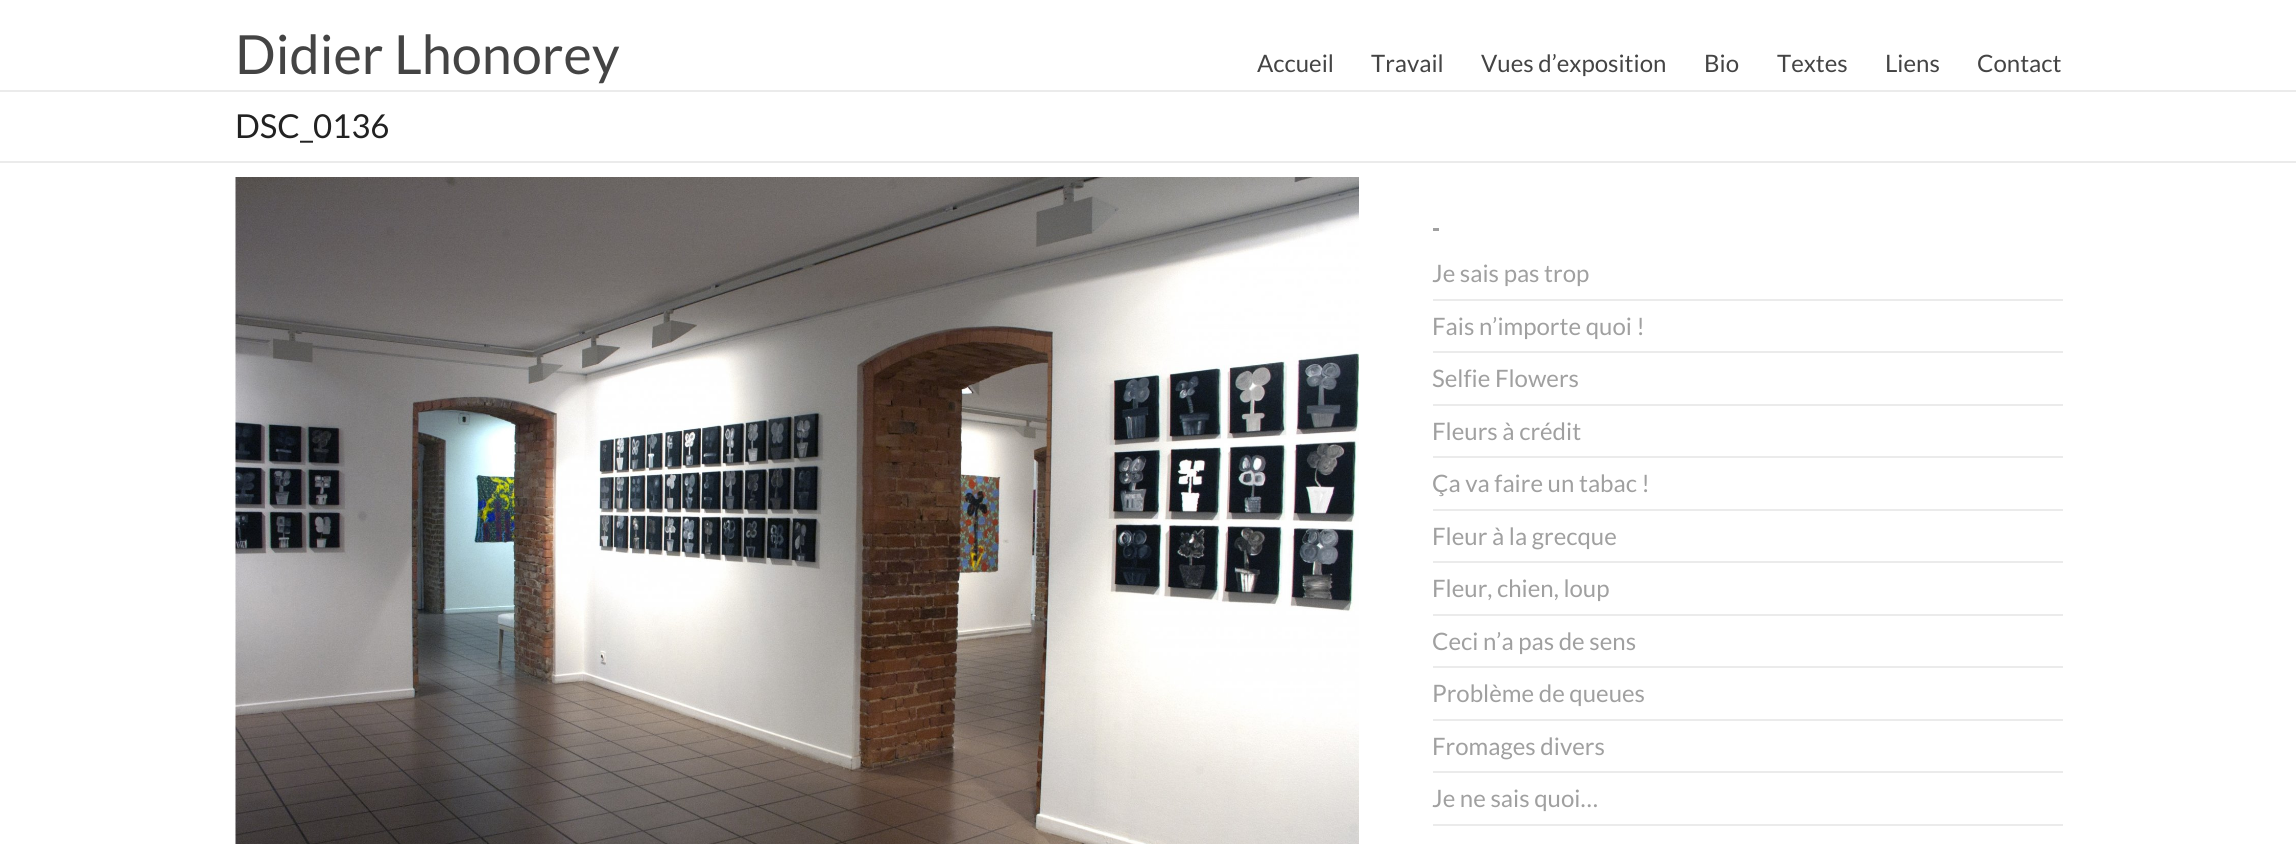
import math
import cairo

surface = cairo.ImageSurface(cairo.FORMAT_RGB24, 2296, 844)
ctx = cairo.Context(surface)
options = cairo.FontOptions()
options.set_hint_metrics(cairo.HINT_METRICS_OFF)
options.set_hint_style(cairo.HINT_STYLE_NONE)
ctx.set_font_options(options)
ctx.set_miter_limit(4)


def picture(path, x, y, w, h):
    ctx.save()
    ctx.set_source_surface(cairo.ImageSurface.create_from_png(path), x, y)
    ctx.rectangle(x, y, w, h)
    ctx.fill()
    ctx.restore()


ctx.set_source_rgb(1, 1, 1)
ctx.paint()
ctx.set_source_rgb(0.918, 0.918, 0.918)
ctx.rectangle(0, 90, 2296, 2)
ctx.fill()
ctx.select_font_face("Lato")
ctx.set_font_size(54)
ctx.set_source_rgb(0.267, 0.267, 0.267)
ctx.move_to(235, 74)
ctx.show_text("Didier Lhonorey")
ctx.set_font_size(24)
ctx.move_to(1257, 72)
ctx.show_text("Accueil")
ctx.move_to(1371, 72)
ctx.show_text("Travail")
ctx.move_to(1481, 72)
ctx.show_text("Vues d’exposition")
ctx.move_to(1704, 72)
ctx.show_text("Bio")
ctx.move_to(1777, 72)
ctx.show_text("Textes")
ctx.move_to(1885, 72)
ctx.show_text("Liens")
ctx.move_to(1977, 72)
ctx.show_text("Contact")
ctx.set_source_rgb(0.918, 0.918, 0.918)
ctx.rectangle(0, 161, 2296, 2)
ctx.fill()
ctx.set_font_size(33)
ctx.set_source_rgb(0.133, 0.133, 0.133)
ctx.move_to(235, 138)
ctx.show_text("DSC_0136")
picture("img1.png", 235, 177, 1124, 667)
ctx.set_source_rgb(0.627, 0.627, 0.627)
ctx.rectangle(1433, 228, 6, 3)
ctx.fill()
ctx.set_source_rgb(0.918, 0.918, 0.918)
ctx.rectangle(1433, 299, 630, 2)
ctx.fill()
ctx.set_font_size(24)
ctx.set_source_rgb(0.627, 0.627, 0.627)
ctx.move_to(1432, 282)
ctx.show_text("Je sais pas trop")
ctx.set_source_rgb(0.918, 0.918, 0.918)
ctx.rectangle(1433, 351, 630, 2)
ctx.fill()
ctx.set_source_rgb(0.627, 0.627, 0.627)
ctx.move_to(1432, 335)
ctx.show_text("Fais n’importe quoi !")
ctx.set_source_rgb(0.918, 0.918, 0.918)
ctx.rectangle(1433, 404, 630, 2)
ctx.fill()
ctx.set_source_rgb(0.627, 0.627, 0.627)
ctx.move_to(1432, 387)
ctx.show_text("Selfie Flowers")
ctx.set_source_rgb(0.918, 0.918, 0.918)
ctx.rectangle(1433, 456, 630, 2)
ctx.fill()
ctx.set_source_rgb(0.627, 0.627, 0.627)
ctx.move_to(1432, 440)
ctx.show_text("Fleurs à crédit")
ctx.set_source_rgb(0.918, 0.918, 0.918)
ctx.rectangle(1433, 509, 630, 2)
ctx.fill()
ctx.set_source_rgb(0.627, 0.627, 0.627)
ctx.move_to(1432, 492)
ctx.show_text("Ça va faire un tabac !")
ctx.set_source_rgb(0.918, 0.918, 0.918)
ctx.rectangle(1433, 561, 630, 2)
ctx.fill()
ctx.set_source_rgb(0.627, 0.627, 0.627)
ctx.move_to(1432, 545)
ctx.show_text("Fleur à la grecque")
ctx.set_source_rgb(0.918, 0.918, 0.918)
ctx.rectangle(1433, 614, 630, 2)
ctx.fill()
ctx.set_source_rgb(0.627, 0.627, 0.627)
ctx.move_to(1432, 597)
ctx.show_text("Fleur, chien, loup")
ctx.set_source_rgb(0.918, 0.918, 0.918)
ctx.rectangle(1433, 666, 630, 2)
ctx.fill()
ctx.set_source_rgb(0.627, 0.627, 0.627)
ctx.move_to(1432, 650)
ctx.show_text("Ceci n’a pas de sens")
ctx.set_source_rgb(0.918, 0.918, 0.918)
ctx.rectangle(1433, 719, 630, 2)
ctx.fill()
ctx.set_source_rgb(0.627, 0.627, 0.627)
ctx.move_to(1432, 702)
ctx.show_text("Problème de queues")
ctx.set_source_rgb(0.918, 0.918, 0.918)
ctx.rectangle(1433, 771, 630, 2)
ctx.fill()
ctx.set_source_rgb(0.627, 0.627, 0.627)
ctx.move_to(1432, 755)
ctx.show_text("Fromages divers")
ctx.set_source_rgb(0.918, 0.918, 0.918)
ctx.rectangle(1433, 824, 630, 2)
ctx.fill()
ctx.set_source_rgb(0.627, 0.627, 0.627)
ctx.move_to(1432, 807)
ctx.show_text("Je ne sais quoi…")
surface.write_to_png("page.png")
